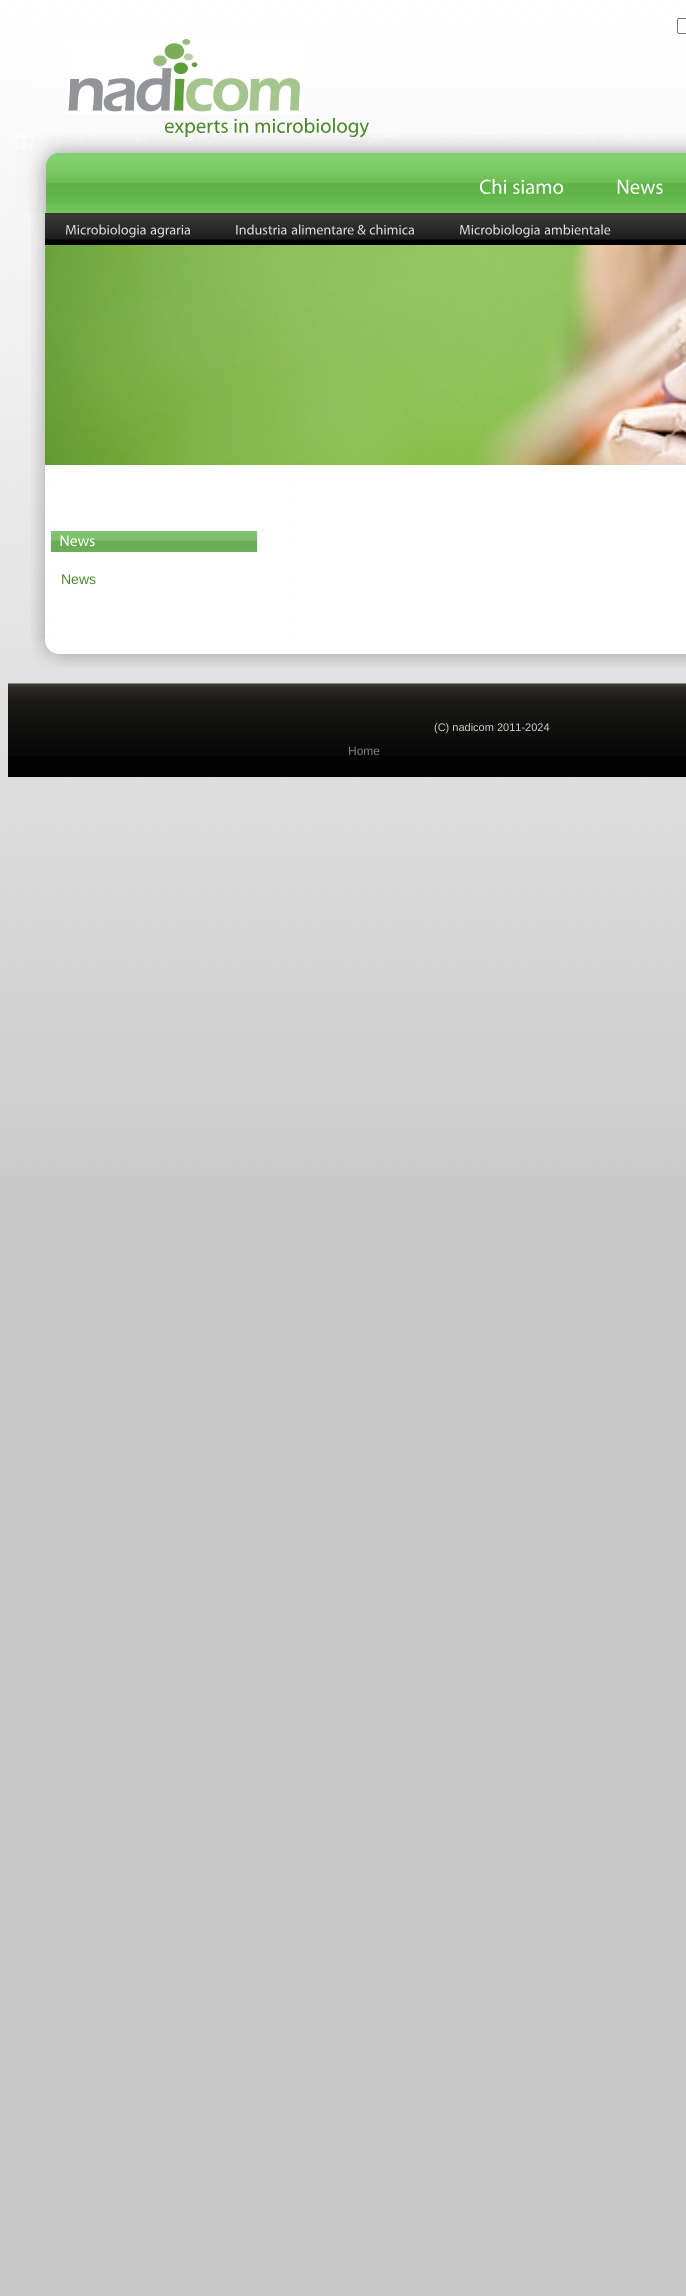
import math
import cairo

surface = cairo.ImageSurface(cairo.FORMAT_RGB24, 686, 2296)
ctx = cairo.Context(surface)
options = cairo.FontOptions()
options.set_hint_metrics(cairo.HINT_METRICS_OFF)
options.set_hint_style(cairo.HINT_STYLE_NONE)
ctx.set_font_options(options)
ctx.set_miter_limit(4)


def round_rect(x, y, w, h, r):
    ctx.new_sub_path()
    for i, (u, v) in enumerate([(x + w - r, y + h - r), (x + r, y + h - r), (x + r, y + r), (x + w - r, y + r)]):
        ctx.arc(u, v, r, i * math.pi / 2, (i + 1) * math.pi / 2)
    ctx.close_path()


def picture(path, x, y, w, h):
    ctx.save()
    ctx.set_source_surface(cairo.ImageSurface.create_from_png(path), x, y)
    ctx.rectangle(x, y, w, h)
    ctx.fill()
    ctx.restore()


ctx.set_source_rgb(0.78, 0.78, 0.78)
ctx.paint()
picture("img1.png", 0, 0, 686, 1176)
picture("img2.png", 31, 213, 655, 426)
picture("img3.png", 30, 8, 656, 126)
round_rect(677.5, 18.5, 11, 15, 1.5)
ctx.set_source_rgb(0.463, 0.463, 0.463)
ctx.set_line_width(1)
ctx.stroke()
picture("img4.png", 65, 38, 239, 77)
picture("img8.png", 15, 134, 671, 79)
picture("img5.png", 165, 120, 63, 17)
picture("img6.png", 234, 118, 15, 15)
picture("img7.png", 255, 118, 114, 20)
picture("img9.png", 479, 179, 28, 15)
picture("img10.png", 513, 179, 51, 15)
picture("img11.png", 617, 179, 46, 15)
picture("img12.png", 45, 213, 641, 32)
picture("img13.png", 66, 224, 80, 14)
picture("img14.png", 150, 225, 40, 13)
picture("img15.png", 236, 224, 51, 11)
picture("img16.png", 291, 224, 63, 11)
picture("img17.png", 357, 224, 9, 11)
picture("img18.png", 369, 224, 45, 11)
picture("img13.png", 460, 224, 80, 14)
picture("img19.png", 544, 224, 67, 11)
picture("img20.png", 45, 245, 641, 220)
picture("img21.png", 51, 531, 206, 21)
picture("img22.png", 60, 535, 35, 12)
ctx.select_font_face("Liberation Sans")
ctx.set_font_size(14)
ctx.set_source_rgb(0.298, 0.533, 0.173)
ctx.move_to(61, 584)
ctx.show_text("News")
picture("img23.png", 32, 639, 654, 29)
ctx.set_source_rgb(0.008, 0.008, 0.008)
ctx.rectangle(8, 756, 678, 21)
ctx.fill()
picture("img24.png", 8, 683, 678, 73)
ctx.set_font_size(11)
ctx.set_source_rgb(0.8, 0.8, 0.8)
ctx.move_to(434, 731)
ctx.show_text("(C) nadicom 2011-2024")
ctx.set_font_size(12)
ctx.set_source_rgb(0.502, 0.502, 0.502)
ctx.move_to(348, 755)
ctx.show_text("Home")
surface.write_to_png("page.png")
